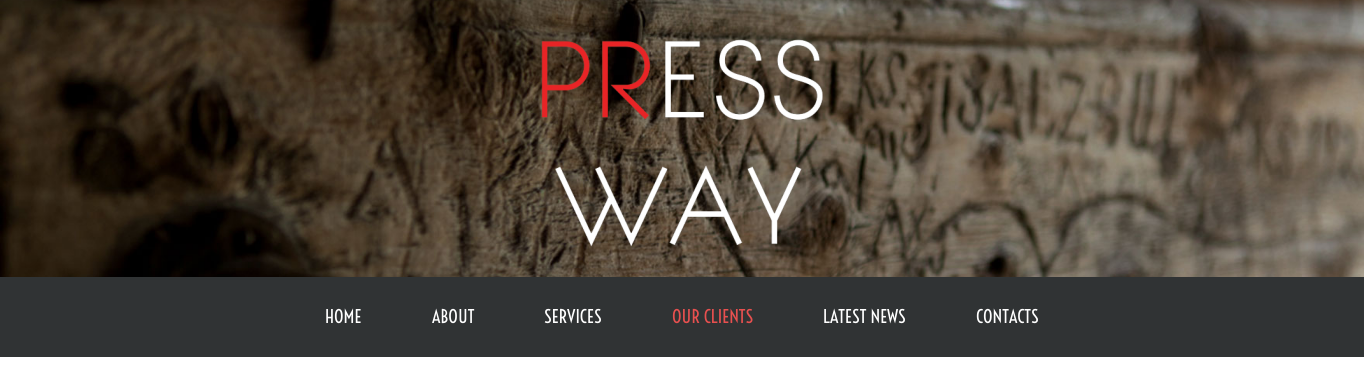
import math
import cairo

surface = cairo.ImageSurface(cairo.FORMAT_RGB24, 1364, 383)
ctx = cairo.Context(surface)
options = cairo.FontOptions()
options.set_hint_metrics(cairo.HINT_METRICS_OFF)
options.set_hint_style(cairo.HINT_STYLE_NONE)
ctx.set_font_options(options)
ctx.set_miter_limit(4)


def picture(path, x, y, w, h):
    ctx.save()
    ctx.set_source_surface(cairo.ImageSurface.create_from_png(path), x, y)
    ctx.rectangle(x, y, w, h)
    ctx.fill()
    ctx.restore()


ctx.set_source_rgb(1, 1, 1)
ctx.paint()
picture("img1.png", 0, 0, 1364, 277)
picture("img2.png", 541, 39, 282, 208)
ctx.set_source_rgb(0.188, 0.2, 0.204)
ctx.rectangle(0, 277, 1364, 80)
ctx.fill()
ctx.select_font_face("Voltaire")
ctx.set_font_size(18)
ctx.set_source_rgb(1, 1, 1)
ctx.move_to(325, 323)
ctx.show_text("HOME")
ctx.move_to(432, 323)
ctx.show_text("ABOUT")
ctx.move_to(544, 323)
ctx.show_text("SERVICES")
ctx.set_source_rgb(0.91, 0.314, 0.31)
ctx.move_to(672, 323)
ctx.show_text("OUR CLIENTS")
ctx.set_source_rgb(1, 1, 1)
ctx.move_to(823, 323)
ctx.show_text("LATEST NEWS")
ctx.move_to(976, 323)
ctx.show_text("CONTACTS")
surface.write_to_png("page.png")
